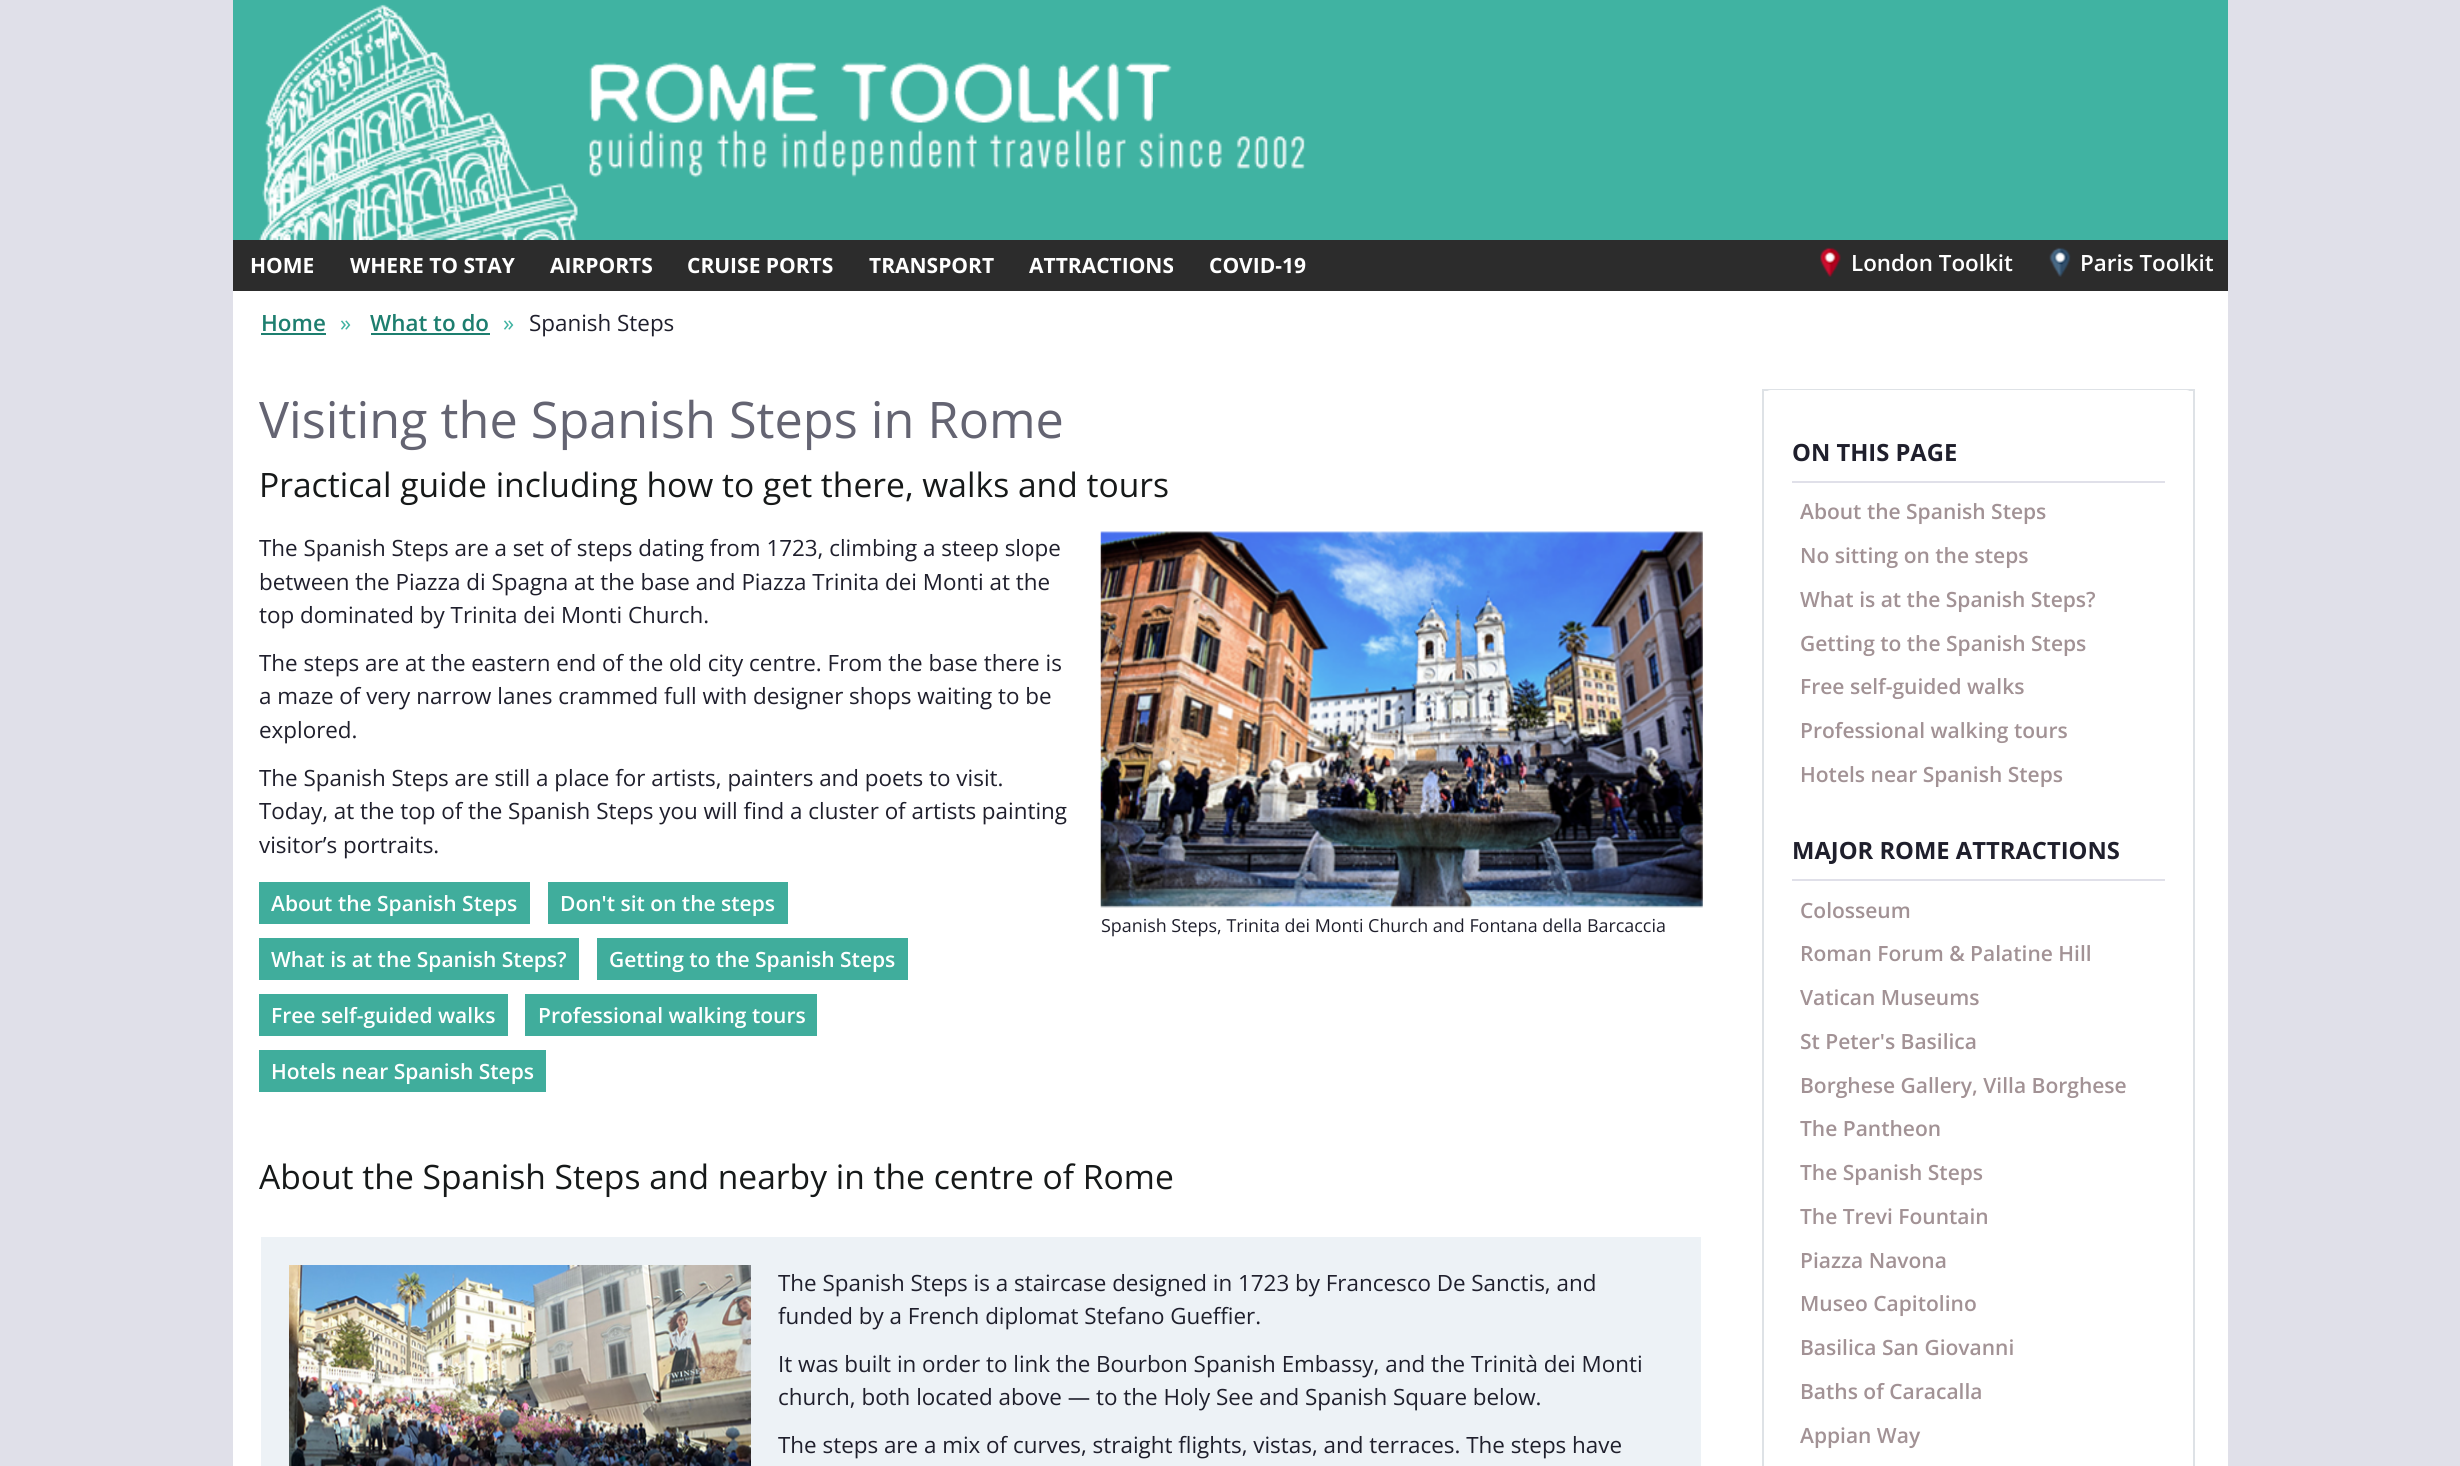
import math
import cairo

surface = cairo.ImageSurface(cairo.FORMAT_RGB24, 2460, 1466)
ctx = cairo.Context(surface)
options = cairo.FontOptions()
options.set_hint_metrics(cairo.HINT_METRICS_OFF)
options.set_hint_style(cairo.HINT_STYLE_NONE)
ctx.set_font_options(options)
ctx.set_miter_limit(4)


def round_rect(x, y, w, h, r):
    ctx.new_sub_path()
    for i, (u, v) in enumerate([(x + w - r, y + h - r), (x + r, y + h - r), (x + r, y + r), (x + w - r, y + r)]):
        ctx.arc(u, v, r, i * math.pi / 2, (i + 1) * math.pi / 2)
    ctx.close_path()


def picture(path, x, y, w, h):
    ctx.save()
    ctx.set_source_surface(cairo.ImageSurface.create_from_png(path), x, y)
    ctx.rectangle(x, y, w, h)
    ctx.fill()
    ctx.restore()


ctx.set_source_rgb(0.878, 0.878, 0.914)
ctx.paint()
ctx.set_source_rgb(1, 1, 1)
ctx.rectangle(233, 291, 1995, 1175)
ctx.fill()
ctx.set_source_rgb(0.251, 0.702, 0.635)
ctx.rectangle(233, 0, 1995, 240)
ctx.fill()
picture("img1.png", 259, 4, 1046, 236)
ctx.set_source_rgb(0.173, 0.173, 0.173)
ctx.rectangle(233, 240, 1995, 51)
ctx.fill()
ctx.select_font_face("Open Sans", cairo.FONT_SLANT_NORMAL, cairo.FONT_WEIGHT_BOLD)
ctx.set_font_size(21)
ctx.set_source_rgb(1, 1, 1)
ctx.move_to(250, 273)
ctx.show_text("HOME")
ctx.move_to(350, 273)
ctx.show_text("WHERE TO STAY")
ctx.move_to(550, 273)
ctx.show_text("AIRPORTS")
ctx.move_to(687, 273)
ctx.show_text("CRUISE PORTS")
ctx.move_to(869, 273)
ctx.show_text("TRANSPORT")
ctx.move_to(1029, 273)
ctx.show_text("ATTRACTIONS")
ctx.move_to(1209, 273)
ctx.show_text("COVID-19")
picture("img2.png", 1820, 247, 21, 30)
ctx.select_font_face("Open Sans SemiBold")
ctx.set_font_size(22.4)
ctx.move_to(1851, 271)
ctx.show_text("London Toolkit")
picture("img3.png", 2049, 247, 22, 30)
ctx.move_to(2080, 271)
ctx.show_text("Paris Toolkit")
ctx.set_source_rgb(0.114, 0.494, 0.435)
ctx.move_to(261, 331)
ctx.show_text("Home")
ctx.rectangle(261, 333, 65, 2)
ctx.fill()
ctx.select_font_face("Open Sans")
ctx.set_source_rgb(0.251, 0.702, 0.635)
ctx.move_to(340, 331)
ctx.show_text("»")
ctx.select_font_face("Open Sans SemiBold")
ctx.set_source_rgb(0.114, 0.494, 0.435)
ctx.move_to(370, 331)
ctx.show_text("What to do")
ctx.rectangle(371, 333, 119, 2)
ctx.fill()
ctx.select_font_face("Open Sans")
ctx.set_source_rgb(0.251, 0.702, 0.635)
ctx.move_to(503, 331)
ctx.show_text("»")
ctx.set_source_rgb(0.122, 0.122, 0.173)
ctx.move_to(529, 331)
ctx.show_text("Spanish Steps")
ctx.set_font_size(50.4)
ctx.set_source_rgb(0.392, 0.392, 0.447)
ctx.move_to(259, 438)
ctx.show_text("Visiting the Spanish Steps in Rome")
ctx.set_font_size(33.6)
ctx.set_source_rgb(0.086, 0.098, 0.098)
ctx.move_to(259, 497)
ctx.show_text("Practical guide including how to get there, walks and tours")
ctx.set_font_size(22.4)
ctx.set_source_rgb(0.122, 0.122, 0.173)
ctx.move_to(259, 556)
ctx.show_text("The Spanish Steps are a set of steps dating from 1723, climbing a steep slope")
ctx.move_to(259, 590)
ctx.show_text("between the Piazza di Spagna at the base and Piazza Trinita dei Monti at the")
ctx.move_to(259, 623)
ctx.show_text("top dominated by Trinita dei Monti Church.")
ctx.move_to(259, 671)
ctx.show_text("The steps are at the eastern end of the old city centre. From the base there is")
ctx.move_to(259, 704)
ctx.show_text("a maze of very narrow lanes crammed full with designer shops waiting to be")
ctx.move_to(259, 738)
ctx.show_text("explored.")
ctx.move_to(259, 786)
ctx.show_text("The Spanish Steps are still a place for artists, painters and poets to visit.")
ctx.move_to(259, 819)
ctx.show_text("Today, at the top of the Spanish Steps you will find a cluster of artists painting")
ctx.move_to(259, 853)
ctx.show_text("visitor’s portraits.")
ctx.set_source_rgb(0.251, 0.678, 0.612)
ctx.rectangle(259, 882, 271, 42)
ctx.fill()
ctx.select_font_face("Open Sans SemiBold")
ctx.set_font_size(21)
ctx.set_source_rgb(1, 1, 1)
ctx.move_to(271, 911)
ctx.show_text("About the Spanish Steps")
ctx.set_source_rgb(0.251, 0.678, 0.612)
ctx.rectangle(548, 882, 240, 42)
ctx.fill()
ctx.set_source_rgb(1, 1, 1)
ctx.move_to(560, 911)
ctx.show_text("Don't sit on the steps")
ctx.set_source_rgb(0.251, 0.678, 0.612)
ctx.rectangle(259, 938, 320, 42)
ctx.fill()
ctx.set_source_rgb(1, 1, 1)
ctx.move_to(271, 967)
ctx.show_text("What is at the Spanish Steps?")
ctx.set_source_rgb(0.251, 0.678, 0.612)
ctx.rectangle(597, 938, 311, 42)
ctx.fill()
ctx.set_source_rgb(1, 1, 1)
ctx.move_to(609, 967)
ctx.show_text("Getting to the Spanish Steps")
ctx.set_source_rgb(0.251, 0.678, 0.612)
ctx.rectangle(259, 994, 249, 42)
ctx.fill()
ctx.set_source_rgb(1, 1, 1)
ctx.move_to(271, 1023)
ctx.show_text("Free self-guided walks")
ctx.set_source_rgb(0.251, 0.678, 0.612)
ctx.rectangle(525, 994, 292, 42)
ctx.fill()
ctx.set_source_rgb(1, 1, 1)
ctx.move_to(538, 1023)
ctx.show_text("Professional walking tours")
ctx.set_source_rgb(0.251, 0.678, 0.612)
ctx.rectangle(259, 1050, 287, 42)
ctx.fill()
ctx.set_source_rgb(1, 1, 1)
ctx.move_to(271, 1079)
ctx.show_text("Hotels near Spanish Steps")
picture("img4.png", 1100, 531, 603, 377)
ctx.select_font_face("Open Sans")
ctx.set_font_size(17.9)
ctx.set_source_rgb(0.122, 0.122, 0.173)
ctx.move_to(1101, 932)
ctx.show_text("Spanish Steps, Trinita dei Monti Church and Fontana della Barcaccia")
ctx.set_font_size(33.6)
ctx.set_source_rgb(0.086, 0.098, 0.098)
ctx.move_to(259, 1189)
ctx.show_text("About the Spanish Steps and nearby in the centre of Rome")
ctx.set_source_rgb(0.929, 0.949, 0.961)
ctx.rectangle(261, 1237, 1440, 229)
ctx.fill()
picture("img5.png", 289, 1265, 462, 201)
ctx.set_font_size(22.4)
ctx.set_source_rgb(0.122, 0.122, 0.173)
ctx.move_to(778, 1291)
ctx.show_text("The Spanish Steps is a staircase designed in 1723 by Francesco De Sanctis, and")
ctx.move_to(778, 1324)
ctx.show_text("funded by a French diplomat Stefano Gueffier.")
ctx.move_to(778, 1372)
ctx.show_text("It was built in order to link the Bourbon Spanish Embassy, and the Trinità dei Monti")
ctx.move_to(778, 1405)
ctx.show_text("church, both located above — to the Holy See and Spanish Square below.")
ctx.move_to(778, 1453)
ctx.show_text("The steps are a mix of curves, straight flights, vistas, and terraces. The steps have")
ctx.rectangle(1763, 390, 431, 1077)
ctx.set_source_rgb(0.871, 0.886, 0.902)
ctx.stroke()
ctx.set_source_rgb(1, 1, 1)
round_rect(1764, 390, 429, 434, 7)
ctx.fill()
ctx.set_source_rgb(0.878, 0.878, 0.914)
ctx.rectangle(1792, 481, 373, 2)
ctx.fill()
ctx.select_font_face("Open Sans", cairo.FONT_SLANT_NORMAL, cairo.FONT_WEIGHT_BOLD)
ctx.set_font_size(23.75)
ctx.set_source_rgb(0.122, 0.122, 0.173)
ctx.move_to(1792, 461)
ctx.show_text("ON THIS PAGE")
ctx.select_font_face("Open Sans SemiBold")
ctx.set_font_size(21)
ctx.set_source_rgb(0.635, 0.573, 0.584)
ctx.move_to(1800, 519)
ctx.show_text("About the Spanish Steps")
ctx.move_to(1800, 563)
ctx.show_text("No sitting on the steps")
ctx.move_to(1800, 607)
ctx.show_text("What is at the Spanish Steps?")
ctx.move_to(1800, 651)
ctx.show_text("Getting to the Spanish Steps")
ctx.move_to(1800, 694)
ctx.show_text("Free self-guided walks")
ctx.move_to(1800, 738)
ctx.show_text("Professional walking tours")
ctx.move_to(1800, 782)
ctx.show_text("Hotels near Spanish Steps")
ctx.set_source_rgb(0.878, 0.878, 0.914)
ctx.rectangle(1792, 879, 373, 2)
ctx.fill()
ctx.select_font_face("Open Sans", cairo.FONT_SLANT_NORMAL, cairo.FONT_WEIGHT_BOLD)
ctx.set_font_size(23.75)
ctx.set_source_rgb(0.122, 0.122, 0.173)
ctx.move_to(1792, 859)
ctx.show_text("MAJOR ROME ATTRACTIONS")
ctx.select_font_face("Open Sans SemiBold")
ctx.set_font_size(21)
ctx.set_source_rgb(0.635, 0.573, 0.584)
ctx.move_to(1800, 918)
ctx.show_text("Colosseum")
ctx.move_to(1800, 961)
ctx.show_text("Roman Forum & Palatine Hill")
ctx.move_to(1800, 1005)
ctx.show_text("Vatican Museums")
ctx.move_to(1800, 1049)
ctx.show_text("St Peter's Basilica")
ctx.move_to(1800, 1093)
ctx.show_text("Borghese Gallery, Villa Borghese")
ctx.move_to(1800, 1136)
ctx.show_text("The Pantheon")
ctx.move_to(1800, 1180)
ctx.show_text("The Spanish Steps")
ctx.move_to(1800, 1224)
ctx.show_text("The Trevi Fountain")
ctx.move_to(1800, 1268)
ctx.show_text("Piazza Navona")
ctx.move_to(1800, 1311)
ctx.show_text("Museo Capitolino")
ctx.move_to(1800, 1355)
ctx.show_text("Basilica San Giovanni")
ctx.move_to(1800, 1399)
ctx.show_text("Baths of Caracalla")
ctx.move_to(1800, 1443)
ctx.show_text("Appian Way")
surface.write_to_png("page.png")
